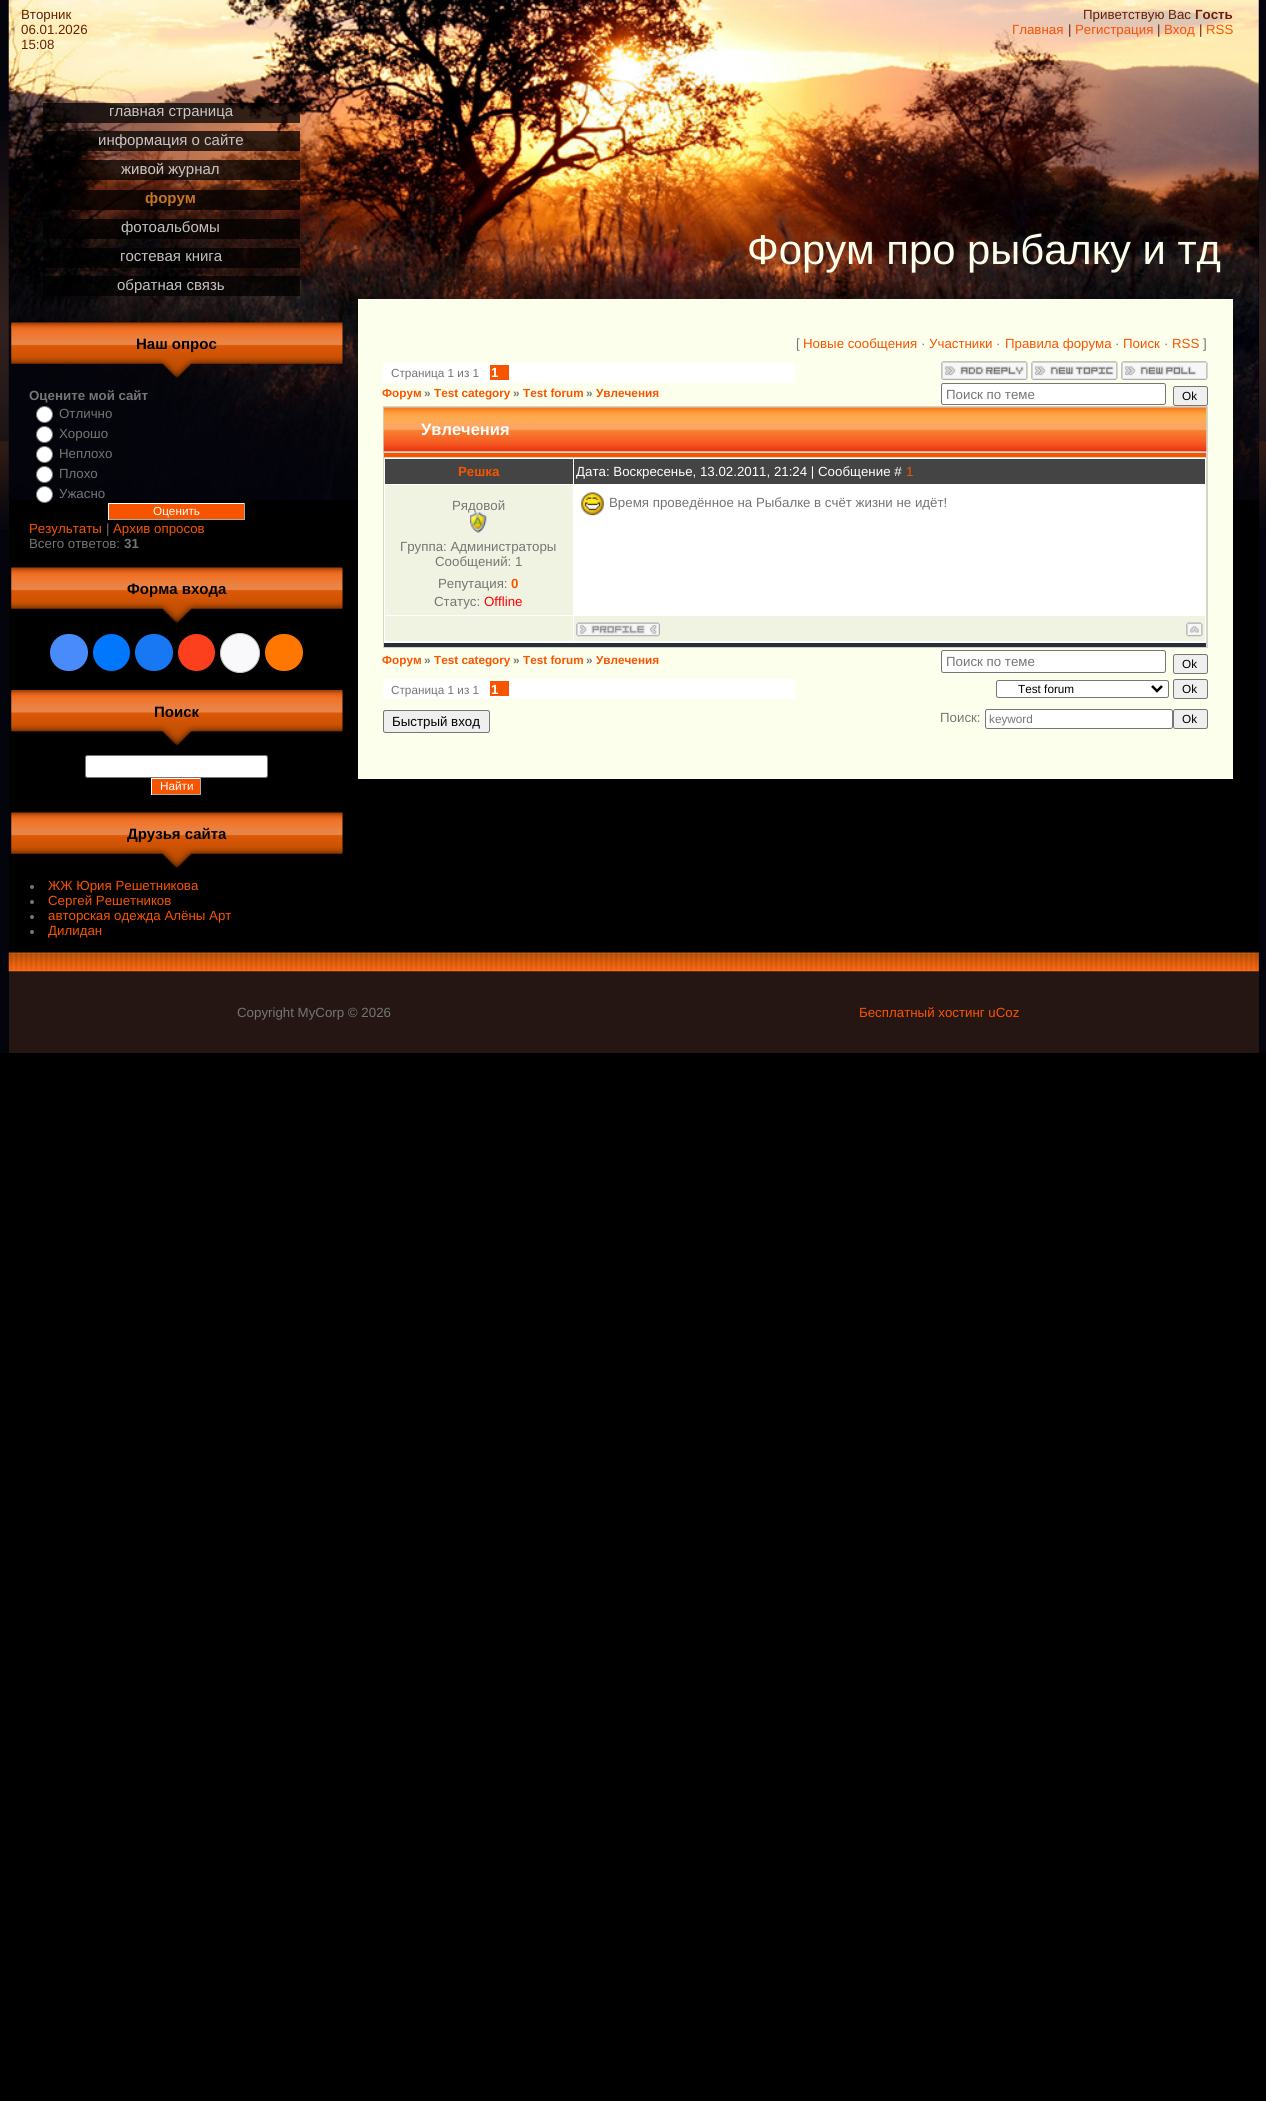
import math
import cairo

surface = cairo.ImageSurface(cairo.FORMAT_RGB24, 1266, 2101)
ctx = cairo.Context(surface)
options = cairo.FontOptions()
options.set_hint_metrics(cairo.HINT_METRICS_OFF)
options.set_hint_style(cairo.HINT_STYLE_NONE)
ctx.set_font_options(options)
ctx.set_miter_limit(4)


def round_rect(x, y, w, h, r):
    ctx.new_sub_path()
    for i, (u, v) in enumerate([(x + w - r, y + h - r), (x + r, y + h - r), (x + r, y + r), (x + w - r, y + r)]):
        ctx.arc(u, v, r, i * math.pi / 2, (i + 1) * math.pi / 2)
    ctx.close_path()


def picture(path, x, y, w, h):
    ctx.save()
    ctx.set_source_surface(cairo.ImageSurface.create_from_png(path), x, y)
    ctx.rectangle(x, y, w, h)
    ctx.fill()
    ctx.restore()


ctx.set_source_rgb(0, 0, 0)
ctx.paint()
ctx.set_source_rgb(0.016, 0.016, 0.047)
ctx.rectangle(0, 0, 1266, 1053)
ctx.fill()
picture("img1.png", 0, 121, 1266, 408)
ctx.set_source_rgb(0, 0, 0)
ctx.rectangle(9, 0, 1250, 953)
ctx.fill()
picture("img2.png", 8, 0, 1251, 500)
ctx.select_font_face("Liberation Sans")
ctx.set_font_size(13.3)
ctx.set_source_rgb(0.396, 0.137, 0.02)
ctx.move_to(21, 19)
ctx.show_text("Вторник")
ctx.move_to(21, 34)
ctx.show_text("06.01.2026")
ctx.move_to(21, 49)
ctx.show_text("15:08")
ctx.move_to(1083, 19)
ctx.show_text("Приветствую Вас")
ctx.select_font_face("Liberation Sans", cairo.FONT_SLANT_NORMAL, cairo.FONT_WEIGHT_BOLD)
ctx.move_to(1195, 19)
ctx.show_text("Гость")
ctx.select_font_face("Liberation Sans")
ctx.set_source_rgb(0.965, 0.329, 0)
ctx.move_to(1012, 34)
ctx.show_text("Главная")
ctx.set_source_rgb(0.396, 0.137, 0.02)
ctx.move_to(1068, 34)
ctx.show_text("|")
ctx.set_source_rgb(0.965, 0.329, 0)
ctx.move_to(1075, 34)
ctx.show_text("Регистрация")
ctx.set_source_rgb(0.396, 0.137, 0.02)
ctx.move_to(1157, 34)
ctx.show_text("|")
ctx.set_source_rgb(0.965, 0.329, 0)
ctx.move_to(1164, 34)
ctx.show_text("Вход")
ctx.set_source_rgb(0.396, 0.137, 0.02)
ctx.move_to(1199, 34)
ctx.show_text("|")
ctx.set_source_rgb(0.965, 0.329, 0)
ctx.move_to(1206, 34)
ctx.show_text("RSS")
ctx.set_source_rgba(0, 0, 0, 0.75)
ctx.rectangle(43, 103, 257, 20)
ctx.fill()
ctx.set_font_size(15)
ctx.set_source_rgb(0.788, 0.776, 0.773)
ctx.move_to(109, 116)
ctx.show_text("главная страница")
ctx.set_source_rgba(0, 0, 0, 0.75)
ctx.rectangle(43, 131, 257, 20)
ctx.fill()
ctx.set_source_rgb(0.788, 0.776, 0.773)
ctx.move_to(98, 145)
ctx.show_text("информация о сайте")
ctx.set_source_rgba(0, 0, 0, 0.75)
ctx.rectangle(43, 160, 257, 20)
ctx.fill()
ctx.set_source_rgb(0.788, 0.776, 0.773)
ctx.move_to(121, 174)
ctx.show_text("живой журнал")
ctx.set_source_rgba(0, 0, 0, 0.75)
ctx.rectangle(43, 190, 257, 20)
ctx.fill()
ctx.select_font_face("Liberation Sans", cairo.FONT_SLANT_NORMAL, cairo.FONT_WEIGHT_BOLD)
ctx.set_source_rgb(0.761, 0.455, 0.153)
ctx.move_to(145, 203)
ctx.show_text("форум")
ctx.set_source_rgba(0, 0, 0, 0.75)
ctx.rectangle(43, 219, 257, 20)
ctx.fill()
ctx.select_font_face("Liberation Sans")
ctx.set_source_rgb(0.761, 0.757, 0.753)
ctx.move_to(121, 232)
ctx.show_text("фотоальбомы")
ctx.set_source_rgba(0, 0, 0, 0.75)
ctx.rectangle(43, 248, 257, 20)
ctx.fill()
ctx.set_source_rgb(0.761, 0.757, 0.753)
ctx.move_to(120, 261)
ctx.show_text("гостевая книга")
ctx.set_source_rgba(0, 0, 0, 0.75)
ctx.rectangle(43, 276, 257, 20)
ctx.fill()
ctx.set_source_rgb(0.761, 0.757, 0.753)
ctx.move_to(117, 290)
ctx.show_text("обратная связь")
picture("img3.png", 11, 322, 332, 57)
ctx.select_font_face("Liberation Sans", cairo.FONT_SLANT_NORMAL, cairo.FONT_WEIGHT_BOLD)
ctx.set_source_rgb(0, 0, 0)
ctx.move_to(136, 349)
ctx.show_text("Наш опрос")
ctx.set_font_size(13.3)
ctx.set_source_rgb(0.459, 0.459, 0.459)
ctx.move_to(29, 400)
ctx.show_text("Оцените мой сайт")
ctx.set_source_rgb(1, 1, 1)
ctx.new_path()
ctx.arc(44.5, 414.5, 8, 0, 2 * math.pi)
ctx.fill_preserve()
ctx.set_source_rgb(0.463, 0.463, 0.463)
ctx.set_line_width(1)
ctx.stroke()
ctx.select_font_face("Liberation Sans")
ctx.set_source_rgb(0.459, 0.459, 0.459)
ctx.move_to(59, 418)
ctx.show_text("Отлично")
ctx.set_source_rgb(1, 1, 1)
ctx.new_path()
ctx.arc(44.5, 434.5, 8, 0, 2 * math.pi)
ctx.fill_preserve()
ctx.set_source_rgb(0.463, 0.463, 0.463)
ctx.stroke()
ctx.set_source_rgb(0.459, 0.459, 0.459)
ctx.move_to(59, 438)
ctx.show_text("Хорошо")
ctx.set_source_rgb(1, 1, 1)
ctx.new_path()
ctx.arc(44.5, 454.5, 8, 0, 2 * math.pi)
ctx.fill_preserve()
ctx.set_source_rgb(0.463, 0.463, 0.463)
ctx.stroke()
ctx.set_source_rgb(0.459, 0.459, 0.459)
ctx.move_to(59, 458)
ctx.show_text("Неплохо")
ctx.set_source_rgb(1, 1, 1)
ctx.new_path()
ctx.arc(44.5, 474.5, 8, 0, 2 * math.pi)
ctx.fill_preserve()
ctx.set_source_rgb(0.463, 0.463, 0.463)
ctx.stroke()
ctx.set_source_rgb(0.459, 0.459, 0.459)
ctx.move_to(59, 478)
ctx.show_text("Плохо")
ctx.set_source_rgb(1, 1, 1)
ctx.new_path()
ctx.arc(44.5, 494.5, 8, 0, 2 * math.pi)
ctx.fill_preserve()
ctx.set_source_rgb(0.463, 0.463, 0.463)
ctx.stroke()
ctx.set_source_rgb(0.459, 0.459, 0.459)
ctx.move_to(59, 498)
ctx.show_text("Ужасно")
ctx.set_source_rgb(0.965, 0.329, 0)
ctx.rectangle(109, 504, 135, 15)
ctx.fill()
ctx.set_source_rgb(1, 1, 1)
ctx.rectangle(108, 503, 137, 1)
ctx.fill()
ctx.set_source_rgb(0.667, 0.667, 0.667)
ctx.rectangle(244, 503, 1, 17)
ctx.fill()
ctx.rectangle(108, 519, 137, 1)
ctx.fill()
ctx.set_source_rgb(1, 1, 1)
ctx.rectangle(108, 503, 1, 17)
ctx.fill()
ctx.set_font_size(11.75)
ctx.move_to(153, 515)
ctx.show_text("Оценить")
ctx.set_font_size(13.3)
ctx.set_source_rgb(0.965, 0.329, 0)
ctx.move_to(29, 533)
ctx.show_text("Результаты")
ctx.set_source_rgb(0.459, 0.459, 0.459)
ctx.move_to(106, 533)
ctx.show_text("|")
ctx.set_source_rgb(0.965, 0.329, 0)
ctx.move_to(113, 533)
ctx.show_text("Архив опросов")
ctx.set_source_rgb(0.459, 0.459, 0.459)
ctx.move_to(29, 548)
ctx.show_text("Всего ответов:")
ctx.select_font_face("Liberation Sans", cairo.FONT_SLANT_NORMAL, cairo.FONT_WEIGHT_BOLD)
ctx.move_to(124, 548)
ctx.show_text("31")
picture("img4.png", 11, 567, 332, 56)
ctx.set_font_size(15)
ctx.set_source_rgb(0, 0, 0)
ctx.move_to(127, 594)
ctx.show_text("Форма входа")
ctx.set_source_rgb(0.286, 0.545, 0.98)
round_rect(50, 634, 38, 37, 18.5)
ctx.fill()
ctx.set_source_rgb(0, 0.467, 1)
ctx.arc(111.5, 652.5, 18.5, 0, 2 * math.pi)
ctx.fill()
ctx.set_source_rgb(0.094, 0.467, 0.949)
round_rect(135, 634, 38, 37, 18.5)
ctx.fill()
ctx.set_source_rgb(0.988, 0.247, 0.114)
ctx.arc(196.5, 652.5, 18.5, 0, 2 * math.pi)
ctx.fill()
ctx.set_source_rgb(0.973, 0.973, 0.988)
ctx.arc(240, 653, 19.5, 0, 2 * math.pi)
ctx.fill_preserve()
ctx.set_source_rgb(0.769, 0.769, 0.769)
ctx.stroke()
ctx.set_source_rgb(1, 0.467, 0)
round_rect(265, 634, 38, 37, 18.5)
ctx.fill()
picture("img5.png", 11, 690, 332, 56)
ctx.set_source_rgb(0, 0, 0)
ctx.move_to(154, 717)
ctx.show_text("Поиск")
ctx.set_source_rgb(1, 1, 1)
round_rect(85.5, 755.5, 182, 22, 2)
ctx.fill_preserve()
ctx.set_source_rgb(0.463, 0.463, 0.463)
ctx.stroke()
ctx.set_source_rgb(0.965, 0.329, 0)
ctx.rectangle(152, 779, 48, 15)
ctx.fill()
ctx.set_source_rgb(1, 1, 1)
ctx.rectangle(151, 778, 50, 1)
ctx.fill()
ctx.set_source_rgb(0.667, 0.667, 0.667)
ctx.rectangle(200, 778, 1, 17)
ctx.fill()
ctx.rectangle(151, 794, 50, 1)
ctx.fill()
ctx.set_source_rgb(1, 1, 1)
ctx.rectangle(151, 778, 1, 17)
ctx.fill()
ctx.select_font_face("Liberation Sans")
ctx.set_font_size(11.75)
ctx.move_to(160, 790)
ctx.show_text("Найти")
picture("img6.png", 11, 812, 332, 56)
ctx.select_font_face("Liberation Sans", cairo.FONT_SLANT_NORMAL, cairo.FONT_WEIGHT_BOLD)
ctx.set_font_size(15)
ctx.set_source_rgb(0, 0, 0)
ctx.move_to(127, 839)
ctx.show_text("Друзья сайта")
ctx.set_source_rgb(0.459, 0.459, 0.459)
ctx.new_path()
ctx.arc(32, 887, 2, 0, 2 * math.pi)
ctx.fill()
ctx.select_font_face("Liberation Sans")
ctx.set_font_size(13.3)
ctx.set_source_rgb(0.965, 0.329, 0)
ctx.move_to(48, 890)
ctx.show_text("ЖЖ Юрия Решетникова")
ctx.set_source_rgb(0.459, 0.459, 0.459)
ctx.new_path()
ctx.arc(32, 902, 2, 0, 2 * math.pi)
ctx.fill()
ctx.set_source_rgb(0.965, 0.329, 0)
ctx.move_to(48, 905)
ctx.show_text("Сергей Решетников")
ctx.set_source_rgb(0.459, 0.459, 0.459)
ctx.new_path()
ctx.arc(32, 917, 2, 0, 2 * math.pi)
ctx.fill()
ctx.set_source_rgb(0.965, 0.329, 0)
ctx.move_to(48, 920)
ctx.show_text("авторская одежда Алёны Арт")
ctx.set_source_rgb(0.459, 0.459, 0.459)
ctx.new_path()
ctx.arc(32, 932, 2, 0, 2 * math.pi)
ctx.fill()
ctx.set_source_rgb(0.965, 0.329, 0)
ctx.move_to(48, 935)
ctx.show_text("Дилидан")
ctx.set_font_size(41.75)
ctx.set_source_rgb(0.992, 1, 0.929)
ctx.move_to(747, 264)
ctx.show_text("Форум про рыбалку и тд")
ctx.rectangle(358, 299, 875, 480)
ctx.fill()
ctx.set_font_size(13.3)
ctx.set_source_rgb(0.459, 0.459, 0.459)
ctx.move_to(796, 348)
ctx.show_text("[")
ctx.set_source_rgb(0.965, 0.329, 0)
ctx.move_to(803, 348)
ctx.show_text("Новые сообщения")
ctx.set_source_rgb(0.459, 0.459, 0.459)
ctx.move_to(921, 348)
ctx.show_text("·")
ctx.set_source_rgb(0.965, 0.329, 0)
ctx.move_to(929, 348)
ctx.show_text("Участники")
ctx.set_source_rgb(0.459, 0.459, 0.459)
ctx.move_to(996, 348)
ctx.show_text("·")
ctx.set_source_rgb(0.965, 0.329, 0)
ctx.move_to(1005, 348)
ctx.show_text("Правила форума")
ctx.set_source_rgb(0.459, 0.459, 0.459)
ctx.move_to(1115, 348)
ctx.show_text("·")
ctx.set_source_rgb(0.965, 0.329, 0)
ctx.move_to(1123, 348)
ctx.show_text("Поиск")
ctx.set_source_rgb(0.459, 0.459, 0.459)
ctx.move_to(1164, 348)
ctx.show_text("·")
ctx.set_source_rgb(0.965, 0.329, 0)
ctx.move_to(1172, 348)
ctx.show_text("RSS")
ctx.set_source_rgb(0.459, 0.459, 0.459)
ctx.move_to(1203, 348)
ctx.show_text("]")
ctx.set_source_rgb(1, 1, 1)
ctx.rectangle(383, 363, 412, 20)
ctx.fill()
ctx.set_font_size(11.75)
ctx.set_source_rgb(0.459, 0.459, 0.459)
ctx.move_to(391, 377)
ctx.show_text("Страница 1 из 1")
ctx.set_source_rgb(0.965, 0.329, 0)
ctx.rectangle(490, 365, 19, 15)
ctx.fill()
ctx.select_font_face("Liberation Sans", cairo.FONT_SLANT_NORMAL, cairo.FONT_WEIGHT_BOLD)
ctx.set_font_size(13.3)
ctx.set_source_rgb(1, 1, 1)
ctx.move_to(491, 377)
ctx.show_text("1")
picture("img7.png", 941, 361, 87, 19)
picture("img8.png", 1031, 361, 87, 19)
picture("img9.png", 1121, 361, 87, 19)
ctx.set_font_size(11.75)
ctx.set_source_rgb(0.965, 0.329, 0)
ctx.move_to(382, 397)
ctx.show_text("Форум")
ctx.set_source_rgb(0.459, 0.459, 0.459)
ctx.move_to(424, 397)
ctx.show_text("»")
ctx.set_source_rgb(0.965, 0.329, 0)
ctx.move_to(434, 397)
ctx.show_text("Test category")
ctx.set_source_rgb(0.459, 0.459, 0.459)
ctx.move_to(513, 397)
ctx.show_text("»")
ctx.set_source_rgb(0.965, 0.329, 0)
ctx.move_to(523, 397)
ctx.show_text("Test forum")
ctx.set_source_rgb(0.459, 0.459, 0.459)
ctx.move_to(586, 397)
ctx.show_text("»")
ctx.set_source_rgb(0.965, 0.329, 0)
ctx.move_to(596, 397)
ctx.show_text("Увлечения")
ctx.set_source_rgb(1, 1, 1)
round_rect(941.5, 383.5, 224, 21, 2)
ctx.fill_preserve()
ctx.set_source_rgb(0.463, 0.463, 0.463)
ctx.stroke()
ctx.select_font_face("Liberation Sans")
ctx.set_font_size(13.3)
ctx.set_source_rgb(0.459, 0.459, 0.459)
ctx.move_to(946, 399)
ctx.show_text("Поиск по теме")
ctx.set_source_rgb(0.937, 0.937, 0.937)
round_rect(1173.5, 386.5, 34, 19, 2)
ctx.fill_preserve()
ctx.set_source_rgb(0.463, 0.463, 0.463)
ctx.stroke()
ctx.set_font_size(11.75)
ctx.set_source_rgb(0, 0, 0)
ctx.move_to(1182, 400)
ctx.show_text("Ok")
ctx.set_source_rgb(0.827, 0.835, 0.776)
ctx.rectangle(383, 406, 825, 242)
ctx.fill()
picture("img10.png", 383, 407, 824, 45)
ctx.select_font_face("Liberation Sans", cairo.FONT_SLANT_NORMAL, cairo.FONT_WEIGHT_BOLD)
ctx.set_font_size(16.5)
ctx.set_source_rgb(1, 1, 1)
ctx.move_to(421, 435)
ctx.show_text("Увлечения")
ctx.set_source_rgb(0.965, 0.329, 0)
ctx.rectangle(384, 453, 822, 4)
ctx.fill()
ctx.set_source_rgb(0.157, 0.184, 0.224)
ctx.rectangle(384, 643, 822, 4)
ctx.fill()
ctx.set_source_rgb(1, 1, 1)
ctx.rectangle(384, 458, 822, 185)
ctx.fill()
ctx.set_source_rgb(0.267, 0.267, 0.267)
ctx.rectangle(385, 459, 188, 25)
ctx.fill()
ctx.set_font_size(13.3)
ctx.set_source_rgb(0.965, 0.329, 0)
ctx.move_to(458, 476)
ctx.show_text("Решка")
ctx.set_source_rgb(0.267, 0.267, 0.267)
ctx.rectangle(574, 459, 631, 25)
ctx.fill()
ctx.select_font_face("Liberation Sans")
ctx.set_source_rgb(1, 1, 1)
ctx.move_to(576, 476)
ctx.show_text("Дата: Воскресенье, 13.02.2011, 21:24 | Сообщение #")
ctx.set_source_rgb(0.965, 0.329, 0)
ctx.move_to(906, 476)
ctx.show_text("1")
ctx.set_source_rgb(0.945, 0.953, 0.886)
ctx.rectangle(385, 485, 188, 130)
ctx.fill()
ctx.set_source_rgb(0.459, 0.459, 0.459)
ctx.move_to(452, 510)
ctx.show_text("Рядовой")
picture("img11.png", 470, 512, 17, 21)
ctx.move_to(400, 551)
ctx.show_text("Группа: Администраторы")
ctx.move_to(435, 566)
ctx.show_text("Сообщений: 1")
ctx.move_to(438, 588)
ctx.show_text("Репутация:")
ctx.select_font_face("Liberation Sans", cairo.FONT_SLANT_NORMAL, cairo.FONT_WEIGHT_BOLD)
ctx.set_source_rgb(0.965, 0.329, 0)
ctx.move_to(511, 588)
ctx.show_text("0")
ctx.select_font_face("Liberation Sans")
ctx.set_source_rgb(0.459, 0.459, 0.459)
ctx.move_to(434, 606)
ctx.show_text("Статус:")
ctx.set_source_rgb(1, 0, 0)
ctx.move_to(484, 606)
ctx.show_text("Offline")
picture("img12.png", 581, 492, 23, 24)
ctx.set_source_rgb(0.459, 0.459, 0.459)
ctx.move_to(609, 507)
ctx.show_text("Время проведённое на Рыбалке в счёт жизни не идёт!")
ctx.set_source_rgb(0.945, 0.953, 0.886)
ctx.rectangle(385, 616, 188, 25)
ctx.fill()
ctx.rectangle(574, 616, 631, 25)
ctx.fill()
picture("img13.png", 576, 622, 84, 15)
picture("img14.png", 1186, 622, 17, 15)
ctx.select_font_face("Liberation Sans", cairo.FONT_SLANT_NORMAL, cairo.FONT_WEIGHT_BOLD)
ctx.set_font_size(11.75)
ctx.set_source_rgb(0.965, 0.329, 0)
ctx.move_to(382, 664)
ctx.show_text("Форум")
ctx.set_source_rgb(0.459, 0.459, 0.459)
ctx.move_to(424, 664)
ctx.show_text("»")
ctx.set_source_rgb(0.965, 0.329, 0)
ctx.move_to(434, 664)
ctx.show_text("Test category")
ctx.set_source_rgb(0.459, 0.459, 0.459)
ctx.move_to(513, 664)
ctx.show_text("»")
ctx.set_source_rgb(0.965, 0.329, 0)
ctx.move_to(523, 664)
ctx.show_text("Test forum")
ctx.set_source_rgb(0.459, 0.459, 0.459)
ctx.move_to(586, 664)
ctx.show_text("»")
ctx.set_source_rgb(0.965, 0.329, 0)
ctx.move_to(596, 664)
ctx.show_text("Увлечения")
ctx.set_source_rgb(1, 1, 1)
round_rect(941.5, 650.5, 224, 22, 2)
ctx.fill_preserve()
ctx.set_source_rgb(0.463, 0.463, 0.463)
ctx.stroke()
ctx.select_font_face("Liberation Sans")
ctx.set_font_size(13.3)
ctx.set_source_rgb(0.459, 0.459, 0.459)
ctx.move_to(946, 666)
ctx.show_text("Поиск по теме")
ctx.set_source_rgb(0.937, 0.937, 0.937)
round_rect(1173.5, 654.5, 34, 19, 2)
ctx.fill_preserve()
ctx.set_source_rgb(0.463, 0.463, 0.463)
ctx.stroke()
ctx.set_font_size(11.75)
ctx.set_source_rgb(0, 0, 0)
ctx.move_to(1182, 668)
ctx.show_text("Ok")
ctx.set_source_rgb(1, 1, 1)
ctx.rectangle(383, 679, 412, 20)
ctx.fill()
ctx.set_source_rgb(0.459, 0.459, 0.459)
ctx.move_to(391, 694)
ctx.show_text("Страница 1 из 1")
ctx.set_source_rgb(0.965, 0.329, 0)
ctx.rectangle(490, 681, 19, 15)
ctx.fill()
ctx.select_font_face("Liberation Sans", cairo.FONT_SLANT_NORMAL, cairo.FONT_WEIGHT_BOLD)
ctx.set_font_size(13.3)
ctx.set_source_rgb(1, 1, 1)
ctx.move_to(491, 694)
ctx.show_text("1")
round_rect(996.5, 680.5, 172, 17, 2)
ctx.fill_preserve()
ctx.set_source_rgb(0.463, 0.463, 0.463)
ctx.stroke()
ctx.new_path()
ctx.move_to(1152, 686)
ctx.line_to(1157, 691)
ctx.line_to(1162, 686)
ctx.set_source_rgb(0, 0, 0)
ctx.set_line_width(2.5)
ctx.stroke()
ctx.select_font_face("Liberation Sans")
ctx.set_font_size(11.75)
ctx.move_to(1018, 693)
ctx.show_text("Test forum")
ctx.set_source_rgb(0.937, 0.937, 0.937)
round_rect(1173.5, 679.5, 34, 19, 2)
ctx.fill_preserve()
ctx.set_source_rgb(0.463, 0.463, 0.463)
ctx.set_line_width(1)
ctx.stroke()
ctx.set_source_rgb(0, 0, 0)
ctx.move_to(1182, 693)
ctx.show_text("Ok")
ctx.set_source_rgb(0.937, 0.937, 0.937)
round_rect(383.5, 710.5, 106, 22, 2)
ctx.fill_preserve()
ctx.set_source_rgb(0.463, 0.463, 0.463)
ctx.stroke()
ctx.set_font_size(13.3)
ctx.set_source_rgb(0, 0, 0)
ctx.move_to(392, 726)
ctx.show_text("Быстрый вход")
ctx.set_source_rgb(0.459, 0.459, 0.459)
ctx.move_to(940, 722)
ctx.show_text("Поиск:")
ctx.set_source_rgb(1, 1, 1)
round_rect(985.5, 709.5, 187, 19, 2)
ctx.fill_preserve()
ctx.set_source_rgb(0.463, 0.463, 0.463)
ctx.stroke()
ctx.set_font_size(11.75)
ctx.set_source_rgb(0.459, 0.459, 0.459)
ctx.move_to(989, 723)
ctx.show_text("keyword")
ctx.set_source_rgb(0.937, 0.937, 0.937)
round_rect(1173.5, 709.5, 34, 19, 2)
ctx.fill_preserve()
ctx.set_source_rgb(0.463, 0.463, 0.463)
ctx.stroke()
ctx.set_source_rgb(0, 0, 0)
ctx.move_to(1182, 723)
ctx.show_text("Ok")
ctx.set_source_rgb(0.145, 0.086, 0.075)
ctx.rectangle(9, 953, 1250, 100)
ctx.fill()
picture("img15.png", 8, 952, 1251, 20)
ctx.set_font_size(13.3)
ctx.set_source_rgb(0.459, 0.459, 0.459)
ctx.move_to(237, 1017)
ctx.show_text("Copyright MyCorp © 2026")
ctx.set_source_rgb(0.965, 0.329, 0)
ctx.move_to(859, 1017)
ctx.show_text("Бесплатный хостинг uCoz")
surface.write_to_png("page.png")
